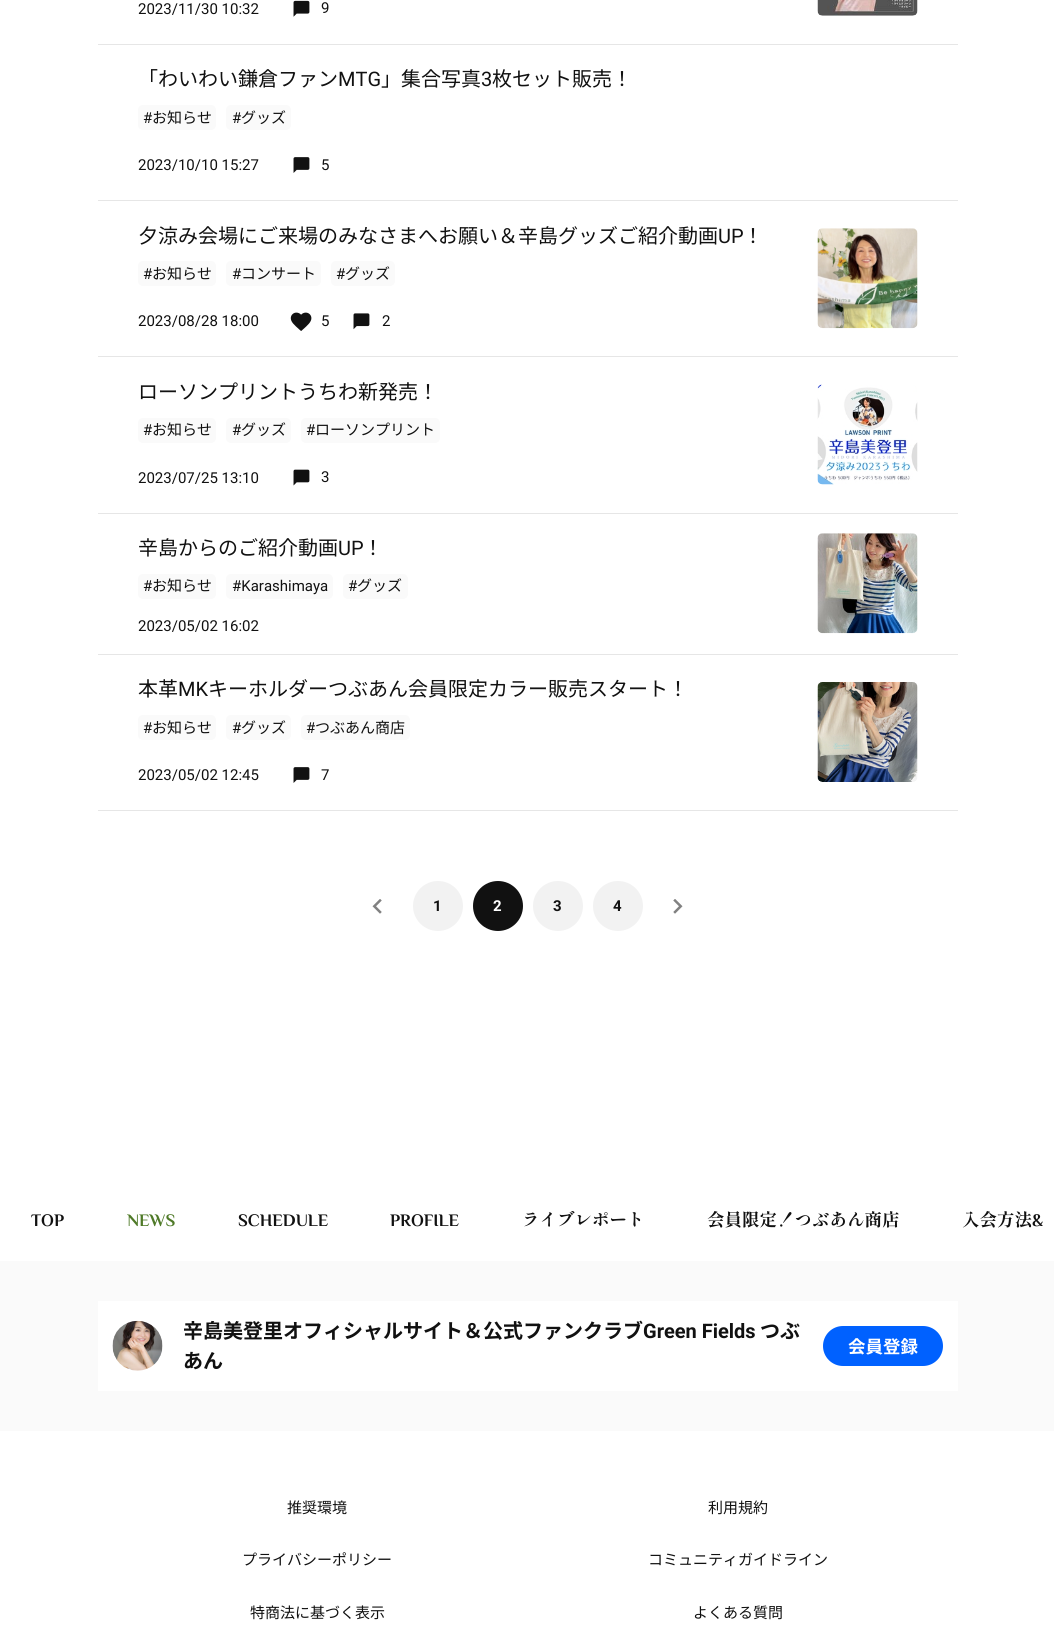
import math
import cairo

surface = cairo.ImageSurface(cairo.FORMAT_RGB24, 1054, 1627)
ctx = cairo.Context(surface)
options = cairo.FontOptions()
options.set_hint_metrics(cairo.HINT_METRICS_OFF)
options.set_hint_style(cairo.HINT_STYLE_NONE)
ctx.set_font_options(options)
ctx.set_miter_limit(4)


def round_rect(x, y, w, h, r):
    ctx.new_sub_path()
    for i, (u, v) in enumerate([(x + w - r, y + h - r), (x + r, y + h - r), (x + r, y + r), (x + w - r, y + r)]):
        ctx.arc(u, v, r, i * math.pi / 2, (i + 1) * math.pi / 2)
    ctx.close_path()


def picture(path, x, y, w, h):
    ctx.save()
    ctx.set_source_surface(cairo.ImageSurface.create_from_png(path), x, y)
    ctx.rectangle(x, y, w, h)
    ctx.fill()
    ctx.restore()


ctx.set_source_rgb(1, 1, 1)
ctx.paint()
ctx.set_source_rgb(0.902, 0.902, 0.902)
ctx.rectangle(98, 44, 860, 1)
ctx.fill()
ctx.select_font_face("Roboto")
ctx.set_font_size(15)
ctx.set_source_rgb(0.067, 0.067, 0.067)
ctx.move_to(138, 14)
ctx.show_text("2023/11/30 10:32")
picture("img1.png", 293, 0, 17, 17)
ctx.move_to(321, 13)
ctx.show_text("9")
picture("img2.png", 817, 0, 101, 16)
ctx.set_source_rgb(0.902, 0.902, 0.902)
ctx.rectangle(98, 200, 860, 1)
ctx.fill()
ctx.select_font_face("Noto Sans JP")
ctx.set_font_size(20)
ctx.set_source_rgb(0.067, 0.067, 0.067)
ctx.move_to(138, 86)
ctx.show_text("「わいわい鎌倉ファン")
ctx.select_font_face("Roboto")
ctx.move_to(338, 86)
ctx.show_text("MTG")
ctx.select_font_face("Noto Sans JP")
ctx.move_to(381, 86)
ctx.show_text("」集合写真")
ctx.select_font_face("Roboto")
ctx.move_to(481, 86)
ctx.show_text("3")
ctx.select_font_face("Noto Sans JP")
ctx.move_to(492, 86)
ctx.show_text("枚セット販売！")
ctx.set_source_rgb(0.98, 0.98, 0.98)
round_rect(138, 105, 78, 25, 5)
ctx.fill()
ctx.select_font_face("Roboto")
ctx.set_font_size(15)
ctx.set_source_rgb(0.067, 0.067, 0.067)
ctx.move_to(143, 123)
ctx.show_text("#")
ctx.select_font_face("Noto Sans JP")
ctx.move_to(152, 123)
ctx.show_text("お知らせ")
ctx.set_source_rgb(0.98, 0.98, 0.98)
round_rect(226, 105, 65, 25, 5)
ctx.fill()
ctx.select_font_face("Roboto")
ctx.set_source_rgb(0.067, 0.067, 0.067)
ctx.move_to(232, 123)
ctx.show_text("#")
ctx.select_font_face("Noto Sans JP")
ctx.move_to(241, 123)
ctx.show_text("グッズ")
ctx.select_font_face("Roboto")
ctx.move_to(138, 170)
ctx.show_text("2023/10/10 15:27")
picture("img3.png", 293, 157, 17, 16)
ctx.move_to(321, 170)
ctx.show_text("5")
ctx.set_source_rgb(0.902, 0.902, 0.902)
ctx.rectangle(98, 356, 860, 1)
ctx.fill()
ctx.select_font_face("Noto Sans JP")
ctx.set_font_size(20)
ctx.set_source_rgb(0.067, 0.067, 0.067)
ctx.move_to(138, 243)
ctx.show_text("夕涼み会場にご来場のみなさまへお願い＆辛島グッズご紹介動画")
ctx.select_font_face("Roboto")
ctx.move_to(718, 243)
ctx.show_text("UP")
ctx.select_font_face("Noto Sans JP")
ctx.move_to(743, 243)
ctx.show_text("！")
ctx.set_source_rgb(0.98, 0.98, 0.98)
round_rect(138, 261, 78, 25, 5)
ctx.fill()
ctx.select_font_face("Roboto")
ctx.set_font_size(15)
ctx.set_source_rgb(0.067, 0.067, 0.067)
ctx.move_to(143, 279)
ctx.show_text("#")
ctx.select_font_face("Noto Sans JP")
ctx.move_to(152, 279)
ctx.show_text("お知らせ")
ctx.set_source_rgb(0.98, 0.98, 0.98)
round_rect(226, 261, 95, 25, 5)
ctx.fill()
ctx.select_font_face("Roboto")
ctx.set_source_rgb(0.067, 0.067, 0.067)
ctx.move_to(232, 279)
ctx.show_text("#")
ctx.select_font_face("Noto Sans JP")
ctx.move_to(241, 279)
ctx.show_text("コンサート")
ctx.set_source_rgb(0.98, 0.98, 0.98)
round_rect(331, 261, 64, 25, 5)
ctx.fill()
ctx.select_font_face("Roboto")
ctx.set_source_rgb(0.067, 0.067, 0.067)
ctx.move_to(336, 279)
ctx.show_text("#")
ctx.select_font_face("Noto Sans JP")
ctx.move_to(345, 279)
ctx.show_text("グッズ")
ctx.select_font_face("Roboto")
ctx.move_to(138, 326)
ctx.show_text("2023/08/28 18:00")
picture("img4.png", 290, 312, 22, 19)
ctx.move_to(321, 326)
ctx.show_text("5")
picture("img5.png", 353, 313, 17, 17)
ctx.move_to(382, 326)
ctx.show_text("2")
picture("img6.png", 817, 228, 101, 101)
ctx.set_source_rgb(0.902, 0.902, 0.902)
ctx.rectangle(98, 513, 860, 1)
ctx.fill()
ctx.select_font_face("Noto Sans JP")
ctx.set_font_size(20)
ctx.set_source_rgb(0.067, 0.067, 0.067)
ctx.move_to(138, 399)
ctx.show_text("ローソンプリントうちわ新発売！")
ctx.set_source_rgb(0.98, 0.98, 0.98)
round_rect(138, 418, 78, 25, 5)
ctx.fill()
ctx.select_font_face("Roboto")
ctx.set_font_size(15)
ctx.set_source_rgb(0.067, 0.067, 0.067)
ctx.move_to(143, 435)
ctx.show_text("#")
ctx.select_font_face("Noto Sans JP")
ctx.move_to(152, 435)
ctx.show_text("お知らせ")
ctx.set_source_rgb(0.98, 0.98, 0.98)
round_rect(226, 418, 65, 25, 5)
ctx.fill()
ctx.select_font_face("Roboto")
ctx.set_source_rgb(0.067, 0.067, 0.067)
ctx.move_to(232, 435)
ctx.show_text("#")
ctx.select_font_face("Noto Sans JP")
ctx.move_to(241, 435)
ctx.show_text("グッズ")
ctx.set_source_rgb(0.98, 0.98, 0.98)
round_rect(301, 418, 139, 25, 5)
ctx.fill()
ctx.select_font_face("Roboto")
ctx.set_source_rgb(0.067, 0.067, 0.067)
ctx.move_to(306, 435)
ctx.show_text("#")
ctx.select_font_face("Noto Sans JP")
ctx.move_to(315, 435)
ctx.show_text("ローソンプリント")
ctx.select_font_face("Roboto")
ctx.move_to(138, 483)
ctx.show_text("2023/07/25 13:10")
picture("img7.png", 293, 469, 17, 17)
ctx.move_to(321, 482)
ctx.show_text("3")
picture("img8.png", 817, 384, 101, 101)
ctx.set_source_rgb(0.902, 0.902, 0.902)
ctx.rectangle(98, 654, 860, 1)
ctx.fill()
ctx.select_font_face("Noto Sans JP")
ctx.set_font_size(20)
ctx.set_source_rgb(0.067, 0.067, 0.067)
ctx.move_to(138, 555)
ctx.show_text("辛島からのご紹介動画")
ctx.select_font_face("Roboto")
ctx.move_to(338, 555)
ctx.show_text("UP")
ctx.select_font_face("Noto Sans JP")
ctx.move_to(363, 555)
ctx.show_text("！")
ctx.set_source_rgb(0.98, 0.98, 0.98)
round_rect(138, 574, 78, 25, 5)
ctx.fill()
ctx.select_font_face("Roboto")
ctx.set_font_size(15)
ctx.set_source_rgb(0.067, 0.067, 0.067)
ctx.move_to(143, 591)
ctx.show_text("#")
ctx.select_font_face("Noto Sans JP")
ctx.move_to(152, 591)
ctx.show_text("お知らせ")
ctx.set_source_rgb(0.98, 0.98, 0.98)
round_rect(226, 574, 107, 25, 5)
ctx.fill()
ctx.select_font_face("Roboto")
ctx.set_source_rgb(0.067, 0.067, 0.067)
ctx.move_to(232, 591)
ctx.show_text("#Karashimaya")
ctx.set_source_rgb(0.98, 0.98, 0.98)
round_rect(343, 574, 65, 25, 5)
ctx.fill()
ctx.set_source_rgb(0.067, 0.067, 0.067)
ctx.move_to(348, 591)
ctx.show_text("#")
ctx.select_font_face("Noto Sans JP")
ctx.move_to(357, 591)
ctx.show_text("グッズ")
ctx.select_font_face("Roboto")
ctx.move_to(138, 631)
ctx.show_text("2023/05/02 16:02")
picture("img9.png", 817, 533, 101, 101)
ctx.set_source_rgb(0.902, 0.902, 0.902)
ctx.rectangle(98, 810, 860, 1)
ctx.fill()
ctx.select_font_face("Noto Sans JP")
ctx.set_font_size(20)
ctx.set_source_rgb(0.067, 0.067, 0.067)
ctx.move_to(138, 696)
ctx.show_text("本革")
ctx.select_font_face("Roboto")
ctx.move_to(178, 696)
ctx.show_text("MK")
ctx.select_font_face("Noto Sans JP")
ctx.move_to(208, 696)
ctx.show_text("キーホルダーつぶあん会員限定カラー販売スタート！")
ctx.set_source_rgb(0.98, 0.98, 0.98)
round_rect(138, 715, 78, 25, 5)
ctx.fill()
ctx.select_font_face("Roboto")
ctx.set_font_size(15)
ctx.set_source_rgb(0.067, 0.067, 0.067)
ctx.move_to(143, 733)
ctx.show_text("#")
ctx.select_font_face("Noto Sans JP")
ctx.move_to(152, 733)
ctx.show_text("お知らせ")
ctx.set_source_rgb(0.98, 0.98, 0.98)
round_rect(226, 715, 65, 25, 5)
ctx.fill()
ctx.select_font_face("Roboto")
ctx.set_source_rgb(0.067, 0.067, 0.067)
ctx.move_to(232, 733)
ctx.show_text("#")
ctx.select_font_face("Noto Sans JP")
ctx.move_to(241, 733)
ctx.show_text("グッズ")
ctx.set_source_rgb(0.98, 0.98, 0.98)
round_rect(301, 715, 109, 25, 5)
ctx.fill()
ctx.select_font_face("Roboto")
ctx.set_source_rgb(0.067, 0.067, 0.067)
ctx.move_to(306, 733)
ctx.show_text("#")
ctx.select_font_face("Noto Sans JP")
ctx.move_to(315, 733)
ctx.show_text("つぶあん商店")
ctx.select_font_face("Roboto")
ctx.move_to(138, 780)
ctx.show_text("2023/05/02 12:45")
picture("img3.png", 293, 767, 17, 16)
ctx.move_to(321, 780)
ctx.show_text("7")
picture("img10.png", 817, 682, 101, 100)
picture("img11.png", 372, 899, 10, 15)
ctx.set_source_rgb(0.949, 0.949, 0.949)
ctx.arc(438, 906, 25, 0, 2 * math.pi)
ctx.fill()
ctx.select_font_face("Roboto", cairo.FONT_SLANT_NORMAL, cairo.FONT_WEIGHT_BOLD)
ctx.set_source_rgb(0.067, 0.067, 0.067)
ctx.move_to(433, 911)
ctx.show_text("1")
ctx.new_path()
ctx.arc(498, 906, 25, 0, 2 * math.pi)
ctx.fill()
ctx.set_source_rgb(1, 1, 1)
ctx.move_to(493, 911)
ctx.show_text("2")
ctx.set_source_rgb(0.949, 0.949, 0.949)
ctx.new_path()
ctx.arc(558, 906, 25, 0, 2 * math.pi)
ctx.fill()
ctx.set_source_rgb(0.067, 0.067, 0.067)
ctx.move_to(553, 911)
ctx.show_text("3")
ctx.set_source_rgb(0.949, 0.949, 0.949)
ctx.new_path()
ctx.arc(618, 906, 25, 0, 2 * math.pi)
ctx.fill()
ctx.set_source_rgb(0.067, 0.067, 0.067)
ctx.move_to(613, 911)
ctx.show_text("4")
picture("img12.png", 673, 899, 10, 15)
ctx.select_font_face("Philosopher", cairo.FONT_SLANT_NORMAL, cairo.FONT_WEIGHT_BOLD)
ctx.set_font_size(17.5)
ctx.move_to(31, 1226)
ctx.show_text("TOP")
ctx.set_source_rgb(0.31, 0.478, 0.157)
ctx.move_to(127, 1226)
ctx.show_text("NEWS")
ctx.set_source_rgb(0.067, 0.067, 0.067)
ctx.move_to(238, 1226)
ctx.show_text("SCHEDULE")
ctx.move_to(390, 1226)
ctx.show_text("PROFILE")
ctx.select_font_face("Shippori Mincho", cairo.FONT_SLANT_NORMAL, cairo.FONT_WEIGHT_BOLD)
ctx.move_to(522, 1226)
ctx.show_text("ライブレポート")
ctx.move_to(707, 1226)
ctx.show_text("会員限定！つぶあん商店")
ctx.move_to(962, 1226)
ctx.show_text("入会方法")
ctx.select_font_face("Philosopher", cairo.FONT_SLANT_NORMAL, cairo.FONT_WEIGHT_BOLD)
ctx.move_to(1032, 1226)
ctx.show_text("&")
ctx.set_source_rgb(0.98, 0.98, 0.98)
ctx.rectangle(0, 1261, 1054, 170)
ctx.fill()
ctx.set_source_rgb(1, 1, 1)
ctx.rectangle(98, 1301, 860, 90)
ctx.fill()
picture("img13.png", 112, 1320, 51, 51)
ctx.select_font_face("Noto Sans JP", cairo.FONT_SLANT_NORMAL, cairo.FONT_WEIGHT_BOLD)
ctx.set_font_size(20)
ctx.set_source_rgb(0.067, 0.067, 0.067)
ctx.move_to(183, 1338)
ctx.show_text("辛島美登里オフィシャルサイト＆公式ファンクラブ")
ctx.select_font_face("Roboto", cairo.FONT_SLANT_NORMAL, cairo.FONT_WEIGHT_BOLD)
ctx.move_to(643, 1338)
ctx.show_text("Green Fields")
ctx.select_font_face("Noto Sans JP", cairo.FONT_SLANT_NORMAL, cairo.FONT_WEIGHT_BOLD)
ctx.move_to(760, 1338)
ctx.show_text("つぶ")
ctx.move_to(183, 1368)
ctx.show_text("あん")
ctx.set_source_rgb(0, 0.38, 1)
round_rect(823, 1326, 120, 40, 20)
ctx.fill()
ctx.set_font_size(17.5)
ctx.set_source_rgb(1, 1, 1)
ctx.move_to(848, 1353)
ctx.show_text("会員登録")
ctx.select_font_face("Noto Sans JP")
ctx.set_font_size(15)
ctx.set_source_rgb(0.067, 0.067, 0.067)
ctx.move_to(287, 1513)
ctx.show_text("推奨環境")
ctx.move_to(708, 1513)
ctx.show_text("利用規約")
ctx.move_to(242, 1565)
ctx.show_text("プライバシーポリシー")
ctx.move_to(648, 1565)
ctx.show_text("コミュニティガイドライン")
ctx.move_to(250, 1618)
ctx.show_text("特商法に基づく表示")
ctx.move_to(693, 1618)
ctx.show_text("よくある質問")
surface.write_to_png("page.png")
